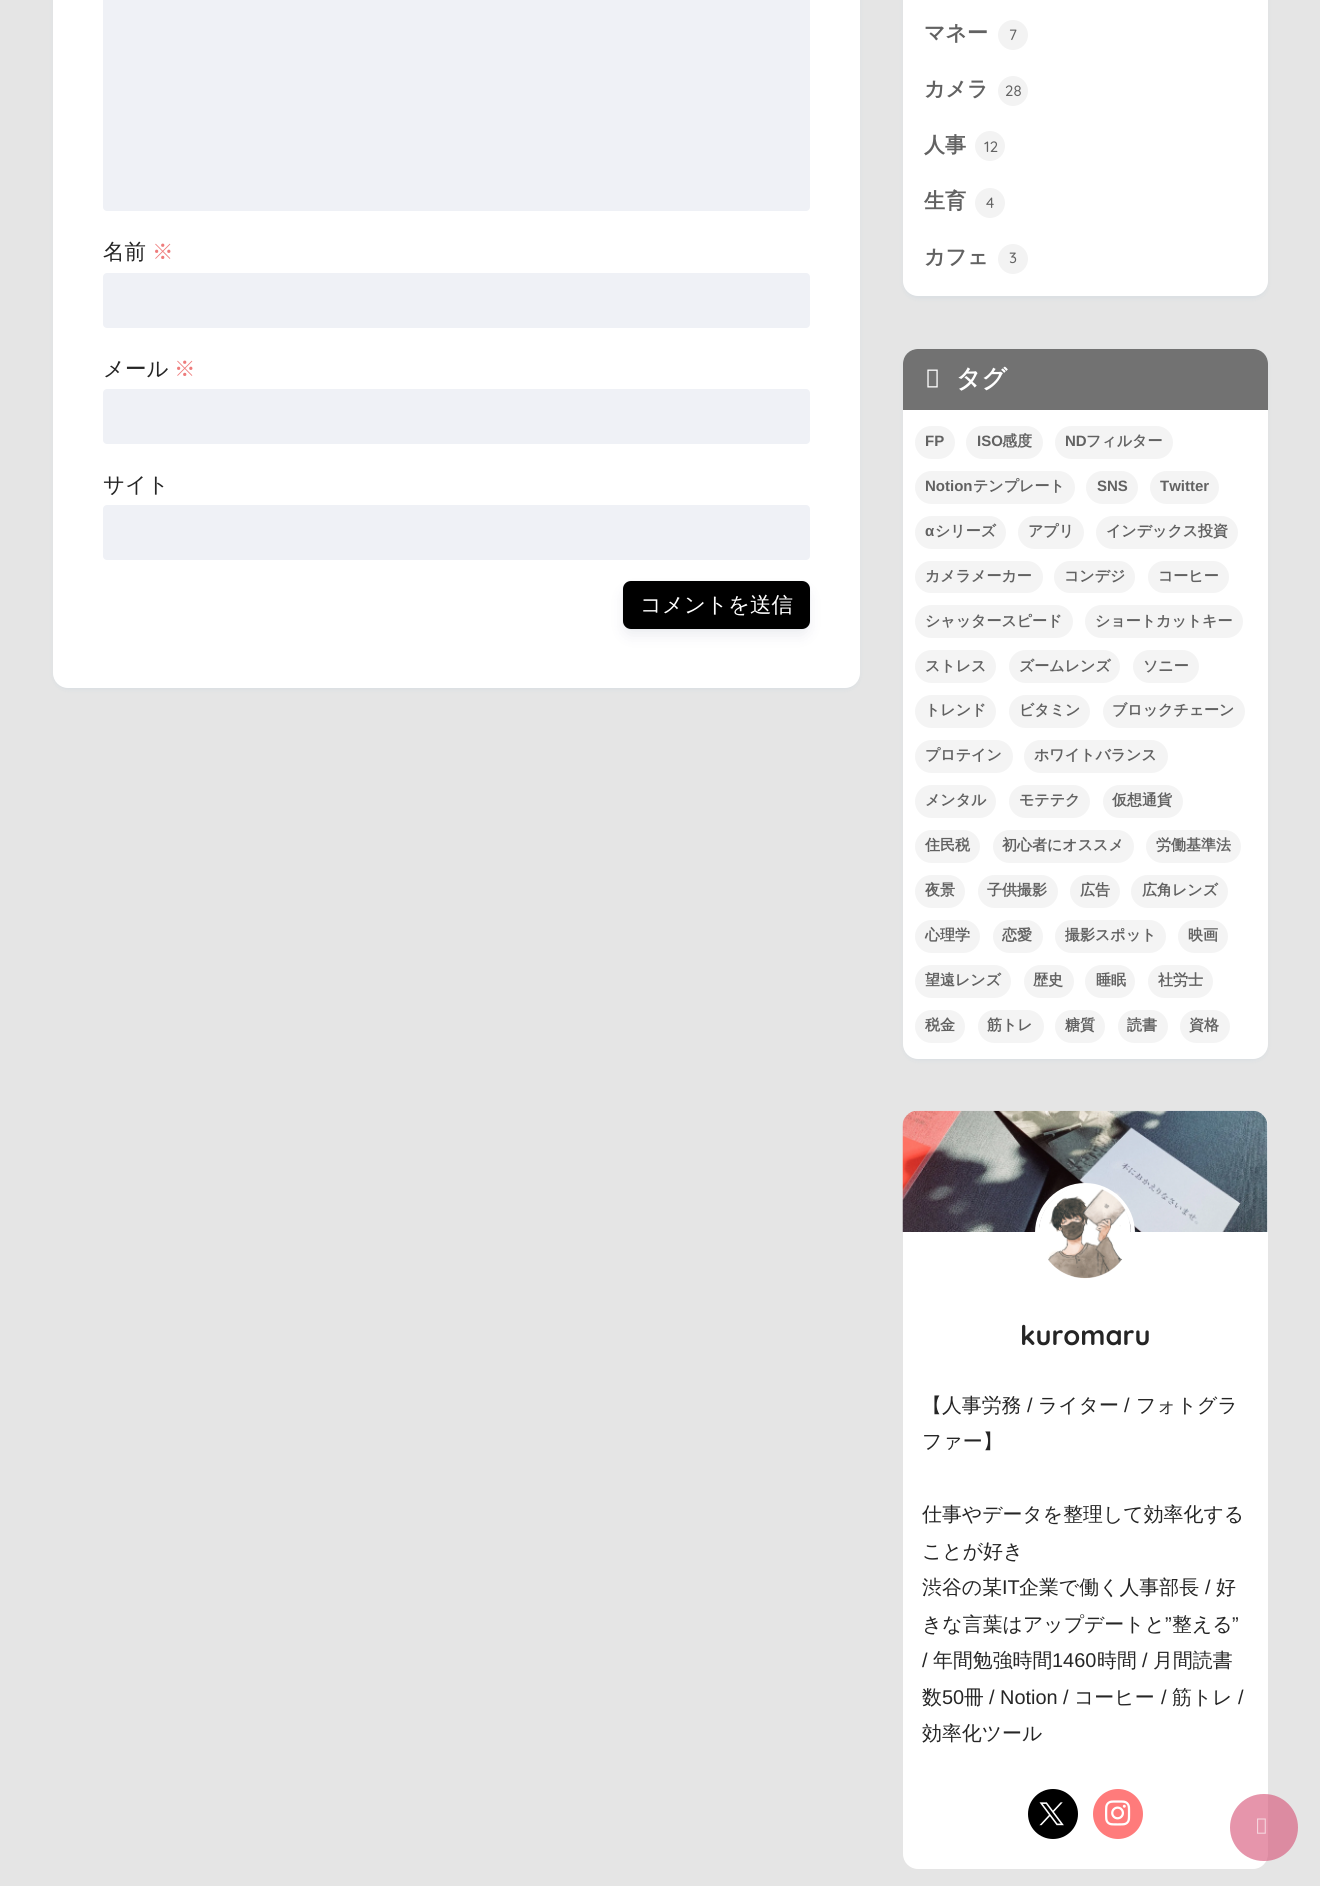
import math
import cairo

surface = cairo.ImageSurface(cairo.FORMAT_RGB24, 1320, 1886)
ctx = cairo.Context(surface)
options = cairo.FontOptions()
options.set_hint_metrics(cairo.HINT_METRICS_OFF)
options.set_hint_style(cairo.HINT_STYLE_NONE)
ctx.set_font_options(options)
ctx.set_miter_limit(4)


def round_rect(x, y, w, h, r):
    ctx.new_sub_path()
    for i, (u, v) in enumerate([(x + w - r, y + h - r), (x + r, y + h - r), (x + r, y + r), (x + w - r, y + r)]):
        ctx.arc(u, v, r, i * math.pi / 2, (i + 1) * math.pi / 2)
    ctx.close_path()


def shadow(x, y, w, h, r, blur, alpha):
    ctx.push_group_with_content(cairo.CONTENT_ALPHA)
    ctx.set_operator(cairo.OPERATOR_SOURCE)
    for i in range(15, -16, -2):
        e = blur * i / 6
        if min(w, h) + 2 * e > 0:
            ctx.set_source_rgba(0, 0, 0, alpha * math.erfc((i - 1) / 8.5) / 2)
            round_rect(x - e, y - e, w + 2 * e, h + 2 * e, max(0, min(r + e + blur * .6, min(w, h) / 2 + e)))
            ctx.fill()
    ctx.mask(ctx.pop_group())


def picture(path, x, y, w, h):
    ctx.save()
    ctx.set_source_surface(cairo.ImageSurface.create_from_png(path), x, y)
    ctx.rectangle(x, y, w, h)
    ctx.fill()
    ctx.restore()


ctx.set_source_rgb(0.898, 0.898, 0.898)
ctx.paint()
ctx.set_source_rgb(0.263, 0.522, 0.733)
shadow(53, -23, 807, 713, 15, 2.5, 0.07)
ctx.set_source_rgb(1, 1, 1)
round_rect(53, -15, 807, 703, 15)
ctx.fill()
ctx.set_source_rgb(0.937, 0.945, 0.961)
round_rect(103, -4, 707, 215, 4)
ctx.fill()
ctx.select_font_face("WenQuanYi Zen Hei Medium")
ctx.set_font_size(21.5)
ctx.set_source_rgb(0.145, 0.145, 0.145)
ctx.move_to(103, 259)
ctx.show_text("名前")
ctx.set_source_rgb(0.933, 0.482, 0.482)
ctx.move_to(152, 259)
ctx.show_text("※")
ctx.set_source_rgb(0.937, 0.945, 0.961)
round_rect(103, 273, 707, 55, 4)
ctx.fill()
ctx.set_source_rgb(0.145, 0.145, 0.145)
ctx.move_to(103, 376)
ctx.show_text("メール")
ctx.set_source_rgb(0.933, 0.482, 0.482)
ctx.move_to(174, 376)
ctx.show_text("※")
ctx.set_source_rgb(0.937, 0.945, 0.961)
round_rect(103, 389, 707, 55, 4)
ctx.fill()
ctx.set_source_rgb(0.145, 0.145, 0.145)
ctx.move_to(103, 492)
ctx.show_text("サイト")
ctx.set_source_rgb(0.937, 0.945, 0.961)
round_rect(103, 505, 707, 55, 4)
ctx.fill()
ctx.set_source_rgb(0, 0.118, 0.392)
shadow(623, 581, 187, 48, 8, 0.5, 0.1)
ctx.set_source_rgb(0, 0.047, 0.259)
shadow(626, 593, 180, 40, 4, 8, 0.1)
ctx.set_source_rgb(0, 0, 0)
round_rect(623, 581, 187, 48, 8)
ctx.fill()
ctx.set_source_rgb(1, 1, 1)
ctx.move_to(640, 612)
ctx.show_text("コメントを送信")
ctx.set_source_rgb(0.263, 0.522, 0.733)
shadow(903, -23, 365, 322, 15, 2.5, 0.07)
ctx.set_source_rgb(1, 1, 1)
round_rect(903, -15, 365, 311, 15)
ctx.fill()
ctx.select_font_face("WenQuanYi Zen Hei", cairo.FONT_SLANT_NORMAL, cairo.FONT_WEIGHT_BOLD)
ctx.set_font_size(21)
ctx.set_source_rgb(0.384, 0.384, 0.384)
ctx.move_to(924, 40)
ctx.show_text("マネー")
ctx.set_source_rgb(0.953, 0.953, 0.953)
ctx.new_path()
ctx.arc(1013, 35, 15, 0, 2 * math.pi)
ctx.fill()
ctx.select_font_face("Quicksand Medium")
ctx.set_font_size(15)
ctx.set_source_rgb(0.384, 0.384, 0.384)
ctx.move_to(1009, 40)
ctx.show_text("7")
ctx.select_font_face("WenQuanYi Zen Hei", cairo.FONT_SLANT_NORMAL, cairo.FONT_WEIGHT_BOLD)
ctx.set_font_size(21)
ctx.move_to(924, 96)
ctx.show_text("カメラ")
ctx.set_source_rgb(0.953, 0.953, 0.953)
ctx.new_path()
ctx.arc(1013, 91, 15, 0, 2 * math.pi)
ctx.fill()
ctx.select_font_face("Quicksand Medium")
ctx.set_font_size(15)
ctx.set_source_rgb(0.384, 0.384, 0.384)
ctx.move_to(1005, 96)
ctx.show_text("28")
ctx.select_font_face("WenQuanYi Zen Hei", cairo.FONT_SLANT_NORMAL, cairo.FONT_WEIGHT_BOLD)
ctx.set_font_size(21)
ctx.move_to(924, 152)
ctx.show_text("人事")
ctx.set_source_rgb(0.953, 0.953, 0.953)
ctx.new_path()
ctx.arc(990, 146, 15, 0, 2 * math.pi)
ctx.fill()
ctx.select_font_face("Quicksand Medium")
ctx.set_font_size(15)
ctx.set_source_rgb(0.384, 0.384, 0.384)
ctx.move_to(984, 152)
ctx.show_text("12")
ctx.select_font_face("WenQuanYi Zen Hei", cairo.FONT_SLANT_NORMAL, cairo.FONT_WEIGHT_BOLD)
ctx.set_font_size(21)
ctx.move_to(924, 208)
ctx.show_text("生育")
ctx.set_source_rgb(0.953, 0.953, 0.953)
ctx.new_path()
ctx.arc(990, 203, 15, 0, 2 * math.pi)
ctx.fill()
ctx.select_font_face("Quicksand Medium")
ctx.set_font_size(15)
ctx.set_source_rgb(0.384, 0.384, 0.384)
ctx.move_to(986, 208)
ctx.show_text("4")
ctx.select_font_face("WenQuanYi Zen Hei", cairo.FONT_SLANT_NORMAL, cairo.FONT_WEIGHT_BOLD)
ctx.set_font_size(21)
ctx.move_to(924, 264)
ctx.show_text("カフェ")
ctx.set_source_rgb(0.953, 0.953, 0.953)
ctx.new_path()
ctx.arc(1013, 259, 15, 0, 2 * math.pi)
ctx.fill()
ctx.select_font_face("Quicksand Medium")
ctx.set_font_size(15)
ctx.set_source_rgb(0.384, 0.384, 0.384)
ctx.move_to(1009, 263)
ctx.show_text("3")
ctx.set_source_rgb(0.263, 0.522, 0.733)
shadow(903, 351, 365, 710, 15, 2.5, 0.07)
ctx.set_source_rgb(1, 1, 1)
round_rect(903, 349, 365, 710, 15)
ctx.fill()
ctx.set_source_rgb(0.447, 0.447, 0.447)
ctx.new_path()
ctx.move_to(918, 349)
ctx.line_to(1253, 349)
ctx.curve_to(1261.5, 349, 1268, 355.5, 1268, 364)
ctx.line_to(1268, 410)
ctx.line_to(903, 410)
ctx.line_to(903, 364)
ctx.curve_to(903, 355.5, 909.5, 349, 918, 349)
ctx.close_path()
ctx.fill()
picture("img1.png", 927, 369, 11, 19)
ctx.select_font_face("WenQuanYi Zen Hei", cairo.FONT_SLANT_NORMAL, cairo.FONT_WEIGHT_BOLD)
ctx.set_font_size(25)
ctx.set_source_rgb(1, 1, 1)
ctx.move_to(956, 387)
ctx.show_text("タグ")
ctx.set_source_rgb(0.957, 0.957, 0.957)
round_rect(915, 426, 40, 33, 16.5)
ctx.fill()
ctx.select_font_face("Liberation Sans", cairo.FONT_SLANT_NORMAL, cairo.FONT_WEIGHT_BOLD)
ctx.set_font_size(15)
ctx.set_source_rgb(0.384, 0.384, 0.384)
ctx.move_to(925, 446)
ctx.show_text("FP")
ctx.set_source_rgb(0.957, 0.957, 0.957)
round_rect(966, 426, 77, 33, 16.5)
ctx.fill()
ctx.set_source_rgb(0.384, 0.384, 0.384)
ctx.move_to(977, 446)
ctx.show_text("ISO")
ctx.select_font_face("WenQuanYi Zen Hei", cairo.FONT_SLANT_NORMAL, cairo.FONT_WEIGHT_BOLD)
ctx.move_to(1002, 446)
ctx.show_text("感度")
ctx.set_source_rgb(0.957, 0.957, 0.957)
round_rect(1055, 426, 118, 33, 16.5)
ctx.fill()
ctx.select_font_face("Liberation Sans", cairo.FONT_SLANT_NORMAL, cairo.FONT_WEIGHT_BOLD)
ctx.set_source_rgb(0.384, 0.384, 0.384)
ctx.move_to(1065, 446)
ctx.show_text("ND")
ctx.select_font_face("WenQuanYi Zen Hei", cairo.FONT_SLANT_NORMAL, cairo.FONT_WEIGHT_BOLD)
ctx.move_to(1086, 446)
ctx.show_text("フィルター")
ctx.set_source_rgb(0.957, 0.957, 0.957)
round_rect(915, 471, 160, 33, 16.5)
ctx.fill()
ctx.select_font_face("Liberation Sans", cairo.FONT_SLANT_NORMAL, cairo.FONT_WEIGHT_BOLD)
ctx.set_source_rgb(0.384, 0.384, 0.384)
ctx.move_to(925, 491)
ctx.show_text("Notion")
ctx.select_font_face("WenQuanYi Zen Hei", cairo.FONT_SLANT_NORMAL, cairo.FONT_WEIGHT_BOLD)
ctx.move_to(973, 491)
ctx.show_text("テンプレート")
ctx.set_source_rgb(0.957, 0.957, 0.957)
round_rect(1086, 471, 52, 33, 16.5)
ctx.fill()
ctx.select_font_face("Liberation Sans", cairo.FONT_SLANT_NORMAL, cairo.FONT_WEIGHT_BOLD)
ctx.set_source_rgb(0.384, 0.384, 0.384)
ctx.move_to(1097, 491)
ctx.show_text("SNS")
ctx.set_source_rgb(0.957, 0.957, 0.957)
round_rect(1150, 471, 69, 33, 16.5)
ctx.fill()
ctx.set_source_rgb(0.384, 0.384, 0.384)
ctx.move_to(1160, 491)
ctx.show_text("Twitter")
ctx.set_source_rgb(0.957, 0.957, 0.957)
round_rect(915, 516, 91, 33, 16.5)
ctx.fill()
ctx.set_source_rgb(0.384, 0.384, 0.384)
ctx.move_to(925, 536)
ctx.show_text("α")
ctx.select_font_face("WenQuanYi Zen Hei", cairo.FONT_SLANT_NORMAL, cairo.FONT_WEIGHT_BOLD)
ctx.move_to(935, 536)
ctx.show_text("シリーズ")
ctx.set_source_rgb(0.957, 0.957, 0.957)
round_rect(1018, 516, 66, 33, 16.5)
ctx.fill()
ctx.set_source_rgb(0.384, 0.384, 0.384)
ctx.move_to(1028, 536)
ctx.show_text("アプリ")
ctx.set_source_rgb(0.957, 0.957, 0.957)
round_rect(1096, 516, 142, 33, 16.5)
ctx.fill()
ctx.set_source_rgb(0.384, 0.384, 0.384)
ctx.move_to(1106, 536)
ctx.show_text("インデックス投資")
ctx.set_source_rgb(0.957, 0.957, 0.957)
round_rect(915, 561, 128, 32, 16)
ctx.fill()
ctx.set_source_rgb(0.384, 0.384, 0.384)
ctx.move_to(925, 581)
ctx.show_text("カメラメーカー")
ctx.set_source_rgb(0.957, 0.957, 0.957)
round_rect(1054, 561, 81, 32, 16)
ctx.fill()
ctx.set_source_rgb(0.384, 0.384, 0.384)
ctx.move_to(1064, 581)
ctx.show_text("コンデジ")
ctx.set_source_rgb(0.957, 0.957, 0.957)
round_rect(1148, 561, 81, 32, 16)
ctx.fill()
ctx.set_source_rgb(0.384, 0.384, 0.384)
ctx.move_to(1158, 581)
ctx.show_text("コーヒー")
ctx.set_source_rgb(0.957, 0.957, 0.957)
round_rect(915, 605, 158, 33, 16.5)
ctx.fill()
ctx.set_source_rgb(0.384, 0.384, 0.384)
ctx.move_to(925, 626)
ctx.show_text("シャッタースピード")
ctx.set_source_rgb(0.957, 0.957, 0.957)
round_rect(1085, 605, 158, 33, 16.5)
ctx.fill()
ctx.set_source_rgb(0.384, 0.384, 0.384)
ctx.move_to(1095, 626)
ctx.show_text("ショートカットキー")
ctx.set_source_rgb(0.957, 0.957, 0.957)
round_rect(915, 650, 81, 33, 16.5)
ctx.fill()
ctx.set_source_rgb(0.384, 0.384, 0.384)
ctx.move_to(925, 671)
ctx.show_text("ストレス")
ctx.set_source_rgb(0.957, 0.957, 0.957)
round_rect(1009, 650, 111, 33, 16.5)
ctx.fill()
ctx.set_source_rgb(0.384, 0.384, 0.384)
ctx.move_to(1019, 671)
ctx.show_text("ズームレンズ")
ctx.set_source_rgb(0.957, 0.957, 0.957)
round_rect(1133, 650, 66, 33, 16.5)
ctx.fill()
ctx.set_source_rgb(0.384, 0.384, 0.384)
ctx.move_to(1143, 671)
ctx.show_text("ソニー")
ctx.set_source_rgb(0.957, 0.957, 0.957)
round_rect(915, 695, 81, 33, 16.5)
ctx.fill()
ctx.set_source_rgb(0.384, 0.384, 0.384)
ctx.move_to(925, 715)
ctx.show_text("トレンド")
ctx.set_source_rgb(0.957, 0.957, 0.957)
round_rect(1009, 695, 81, 33, 16.5)
ctx.fill()
ctx.set_source_rgb(0.384, 0.384, 0.384)
ctx.move_to(1019, 715)
ctx.show_text("ビタミン")
ctx.set_source_rgb(0.957, 0.957, 0.957)
round_rect(1103, 695, 142, 33, 16.5)
ctx.fill()
ctx.set_source_rgb(0.384, 0.384, 0.384)
ctx.move_to(1112, 715)
ctx.show_text("ブロックチェーン")
ctx.set_source_rgb(0.957, 0.957, 0.957)
round_rect(915, 740, 98, 33, 16.5)
ctx.fill()
ctx.set_source_rgb(0.384, 0.384, 0.384)
ctx.move_to(925, 760)
ctx.show_text("プロテイン")
ctx.set_source_rgb(0.957, 0.957, 0.957)
round_rect(1024, 740, 144, 33, 16.5)
ctx.fill()
ctx.set_source_rgb(0.384, 0.384, 0.384)
ctx.move_to(1034, 760)
ctx.show_text("ホワイトバランス")
ctx.set_source_rgb(0.957, 0.957, 0.957)
round_rect(915, 785, 81, 33, 16.5)
ctx.fill()
ctx.set_source_rgb(0.384, 0.384, 0.384)
ctx.move_to(925, 805)
ctx.show_text("メンタル")
ctx.set_source_rgb(0.957, 0.957, 0.957)
round_rect(1009, 785, 81, 33, 16.5)
ctx.fill()
ctx.set_source_rgb(0.384, 0.384, 0.384)
ctx.move_to(1019, 805)
ctx.show_text("モテテク")
ctx.set_source_rgb(0.957, 0.957, 0.957)
round_rect(1103, 785, 80, 33, 16.5)
ctx.fill()
ctx.set_source_rgb(0.384, 0.384, 0.384)
ctx.move_to(1112, 805)
ctx.show_text("仮想通貨")
ctx.set_source_rgb(0.957, 0.957, 0.957)
round_rect(915, 830, 65, 33, 16.5)
ctx.fill()
ctx.set_source_rgb(0.384, 0.384, 0.384)
ctx.move_to(925, 850)
ctx.show_text("住民税")
ctx.set_source_rgb(0.957, 0.957, 0.957)
round_rect(993, 830, 141, 33, 16.5)
ctx.fill()
ctx.set_source_rgb(0.384, 0.384, 0.384)
ctx.move_to(1002, 850)
ctx.show_text("初心者にオススメ")
ctx.set_source_rgb(0.957, 0.957, 0.957)
round_rect(1146, 830, 95, 33, 16.5)
ctx.fill()
ctx.set_source_rgb(0.384, 0.384, 0.384)
ctx.move_to(1156, 850)
ctx.show_text("労働基準法")
ctx.set_source_rgb(0.957, 0.957, 0.957)
round_rect(915, 875, 50, 33, 16.5)
ctx.fill()
ctx.set_source_rgb(0.384, 0.384, 0.384)
ctx.move_to(925, 895)
ctx.show_text("夜景")
ctx.set_source_rgb(0.957, 0.957, 0.957)
round_rect(978, 875, 80, 33, 16.5)
ctx.fill()
ctx.set_source_rgb(0.384, 0.384, 0.384)
ctx.move_to(987, 895)
ctx.show_text("子供撮影")
ctx.set_source_rgb(0.957, 0.957, 0.957)
round_rect(1070, 875, 50, 33, 16.5)
ctx.fill()
ctx.set_source_rgb(0.384, 0.384, 0.384)
ctx.move_to(1080, 895)
ctx.show_text("広告")
ctx.set_source_rgb(0.957, 0.957, 0.957)
round_rect(1131, 875, 97, 33, 16.5)
ctx.fill()
ctx.set_source_rgb(0.384, 0.384, 0.384)
ctx.move_to(1142, 895)
ctx.show_text("広角レンズ")
ctx.set_source_rgb(0.957, 0.957, 0.957)
round_rect(915, 920, 65, 33, 16.5)
ctx.fill()
ctx.set_source_rgb(0.384, 0.384, 0.384)
ctx.move_to(925, 940)
ctx.show_text("心理学")
ctx.set_source_rgb(0.957, 0.957, 0.957)
round_rect(993, 920, 50, 33, 16.5)
ctx.fill()
ctx.set_source_rgb(0.384, 0.384, 0.384)
ctx.move_to(1002, 940)
ctx.show_text("恋愛")
ctx.set_source_rgb(0.957, 0.957, 0.957)
round_rect(1055, 920, 111, 33, 16.5)
ctx.fill()
ctx.set_source_rgb(0.384, 0.384, 0.384)
ctx.move_to(1065, 940)
ctx.show_text("撮影スポット")
ctx.set_source_rgb(0.957, 0.957, 0.957)
round_rect(1178, 920, 50, 33, 16.5)
ctx.fill()
ctx.set_source_rgb(0.384, 0.384, 0.384)
ctx.move_to(1188, 940)
ctx.show_text("映画")
ctx.set_source_rgb(0.957, 0.957, 0.957)
round_rect(915, 965, 96, 33, 16.5)
ctx.fill()
ctx.set_source_rgb(0.384, 0.384, 0.384)
ctx.move_to(925, 985)
ctx.show_text("望遠レンズ")
ctx.set_source_rgb(0.957, 0.957, 0.957)
round_rect(1024, 965, 50, 33, 16.5)
ctx.fill()
ctx.set_source_rgb(0.384, 0.384, 0.384)
ctx.move_to(1033, 985)
ctx.show_text("歴史")
ctx.set_source_rgb(0.957, 0.957, 0.957)
round_rect(1085, 965, 50, 33, 16.5)
ctx.fill()
ctx.set_source_rgb(0.384, 0.384, 0.384)
ctx.move_to(1096, 985)
ctx.show_text("睡眠")
ctx.set_source_rgb(0.957, 0.957, 0.957)
round_rect(1148, 965, 65, 33, 16.5)
ctx.fill()
ctx.set_source_rgb(0.384, 0.384, 0.384)
ctx.move_to(1158, 985)
ctx.show_text("社労士")
ctx.set_source_rgb(0.957, 0.957, 0.957)
round_rect(915, 1010, 50, 33, 16.5)
ctx.fill()
ctx.set_source_rgb(0.384, 0.384, 0.384)
ctx.move_to(925, 1030)
ctx.show_text("税金")
ctx.set_source_rgb(0.957, 0.957, 0.957)
round_rect(978, 1010, 66, 33, 16.5)
ctx.fill()
ctx.set_source_rgb(0.384, 0.384, 0.384)
ctx.move_to(987, 1030)
ctx.show_text("筋トレ")
ctx.set_source_rgb(0.957, 0.957, 0.957)
round_rect(1055, 1010, 50, 33, 16.5)
ctx.fill()
ctx.set_source_rgb(0.384, 0.384, 0.384)
ctx.move_to(1065, 1030)
ctx.show_text("糖質")
ctx.set_source_rgb(0.957, 0.957, 0.957)
round_rect(1118, 1010, 50, 33, 16.5)
ctx.fill()
ctx.set_source_rgb(0.384, 0.384, 0.384)
ctx.move_to(1127, 1030)
ctx.show_text("読書")
ctx.set_source_rgb(0.957, 0.957, 0.957)
round_rect(1180, 1010, 50, 33, 16.5)
ctx.fill()
ctx.set_source_rgb(0.384, 0.384, 0.384)
ctx.move_to(1189, 1030)
ctx.show_text("資格")
ctx.set_source_rgb(1, 1, 1)
round_rect(903, 1111, 365, 758, 15)
ctx.fill()
picture("img2.png", 902, 1110, 366, 122)
ctx.arc(1085, 1233, 48, 0, 2 * math.pi)
ctx.set_line_width(4)
ctx.stroke()
picture("img3.png", 1039, 1187, 92, 92)
ctx.select_font_face("Quicksand", cairo.FONT_SLANT_NORMAL, cairo.FONT_WEIGHT_BOLD)
ctx.set_font_size(27.25)
ctx.set_source_rgb(0.145, 0.145, 0.145)
ctx.move_to(1020, 1345)
ctx.show_text("kuromaru")
ctx.select_font_face("WenQuanYi Zen Hei Medium")
ctx.set_font_size(19.9)
ctx.move_to(922, 1412)
ctx.show_text("【人事労務")
ctx.select_font_face("Liberation Sans")
ctx.move_to(1027, 1412)
ctx.show_text("/")
ctx.select_font_face("WenQuanYi Zen Hei Medium")
ctx.move_to(1038, 1412)
ctx.show_text("ライター")
ctx.select_font_face("Liberation Sans")
ctx.move_to(1124, 1412)
ctx.show_text("/")
ctx.select_font_face("WenQuanYi Zen Hei Medium")
ctx.move_to(1136, 1412)
ctx.show_text("フォトグラ")
ctx.move_to(922, 1448)
ctx.show_text("ファー】")
ctx.move_to(922, 1521)
ctx.show_text("仕事やデータを整理して効率化する")
ctx.move_to(922, 1558)
ctx.show_text("ことが好き")
ctx.move_to(922, 1594)
ctx.show_text("渋谷の某")
ctx.select_font_face("Liberation Sans")
ctx.move_to(1002, 1594)
ctx.show_text("IT")
ctx.select_font_face("WenQuanYi Zen Hei Medium")
ctx.move_to(1019, 1594)
ctx.show_text("企業で働く人事部長")
ctx.select_font_face("Liberation Sans")
ctx.move_to(1205, 1594)
ctx.show_text("/")
ctx.select_font_face("WenQuanYi Zen Hei Medium")
ctx.move_to(1216, 1594)
ctx.show_text("好")
ctx.move_to(922, 1631)
ctx.show_text("きな言葉はアップデートと")
ctx.select_font_face("Liberation Sans")
ctx.move_to(1165, 1631)
ctx.show_text("”")
ctx.select_font_face("WenQuanYi Zen Hei Medium")
ctx.move_to(1172, 1631)
ctx.show_text("整える")
ctx.select_font_face("Liberation Sans")
ctx.move_to(1232, 1631)
ctx.show_text("”")
ctx.move_to(922, 1667)
ctx.show_text("/")
ctx.select_font_face("WenQuanYi Zen Hei Medium")
ctx.move_to(933, 1667)
ctx.show_text("年間勉強時間")
ctx.select_font_face("Liberation Sans")
ctx.move_to(1052, 1667)
ctx.show_text("1460")
ctx.select_font_face("WenQuanYi Zen Hei Medium")
ctx.move_to(1097, 1667)
ctx.show_text("時間")
ctx.select_font_face("Liberation Sans")
ctx.move_to(1142, 1667)
ctx.show_text("/")
ctx.select_font_face("WenQuanYi Zen Hei Medium")
ctx.move_to(1153, 1667)
ctx.show_text("月間読書")
ctx.move_to(922, 1704)
ctx.show_text("数")
ctx.select_font_face("Liberation Sans")
ctx.move_to(942, 1704)
ctx.show_text("50")
ctx.select_font_face("WenQuanYi Zen Hei Medium")
ctx.move_to(964, 1704)
ctx.show_text("冊")
ctx.select_font_face("Liberation Sans")
ctx.move_to(989, 1704)
ctx.show_text("/ Notion /")
ctx.select_font_face("WenQuanYi Zen Hei Medium")
ctx.move_to(1074, 1704)
ctx.show_text("コーヒー")
ctx.select_font_face("Liberation Sans")
ctx.move_to(1161, 1704)
ctx.show_text("/")
ctx.select_font_face("WenQuanYi Zen Hei Medium")
ctx.move_to(1172, 1704)
ctx.show_text("筋トレ")
ctx.select_font_face("Liberation Sans")
ctx.move_to(1238, 1704)
ctx.show_text("/")
ctx.select_font_face("WenQuanYi Zen Hei Medium")
ctx.move_to(922, 1740)
ctx.show_text("効率化ツール")
ctx.set_source_rgb(0, 0, 0)
ctx.new_path()
ctx.arc(1053, 1814, 25, 0, 2 * math.pi)
ctx.fill()
picture("img4.png", 1039, 1802, 25, 24)
ctx.set_source_rgb(1, 0.482, 0.482)
ctx.arc(1118, 1814, 25, 0, 2 * math.pi)
ctx.fill()
picture("img5.png", 1105, 1800, 26, 26)
ctx.set_source_rgba(0.839, 0.31, 0.451, 0.6)
round_rect(1230, 1794, 68, 67, 33.5)
ctx.fill()
picture("img6.png", 1257, 1818, 9, 16)
surface.write_to_png("page.png")
